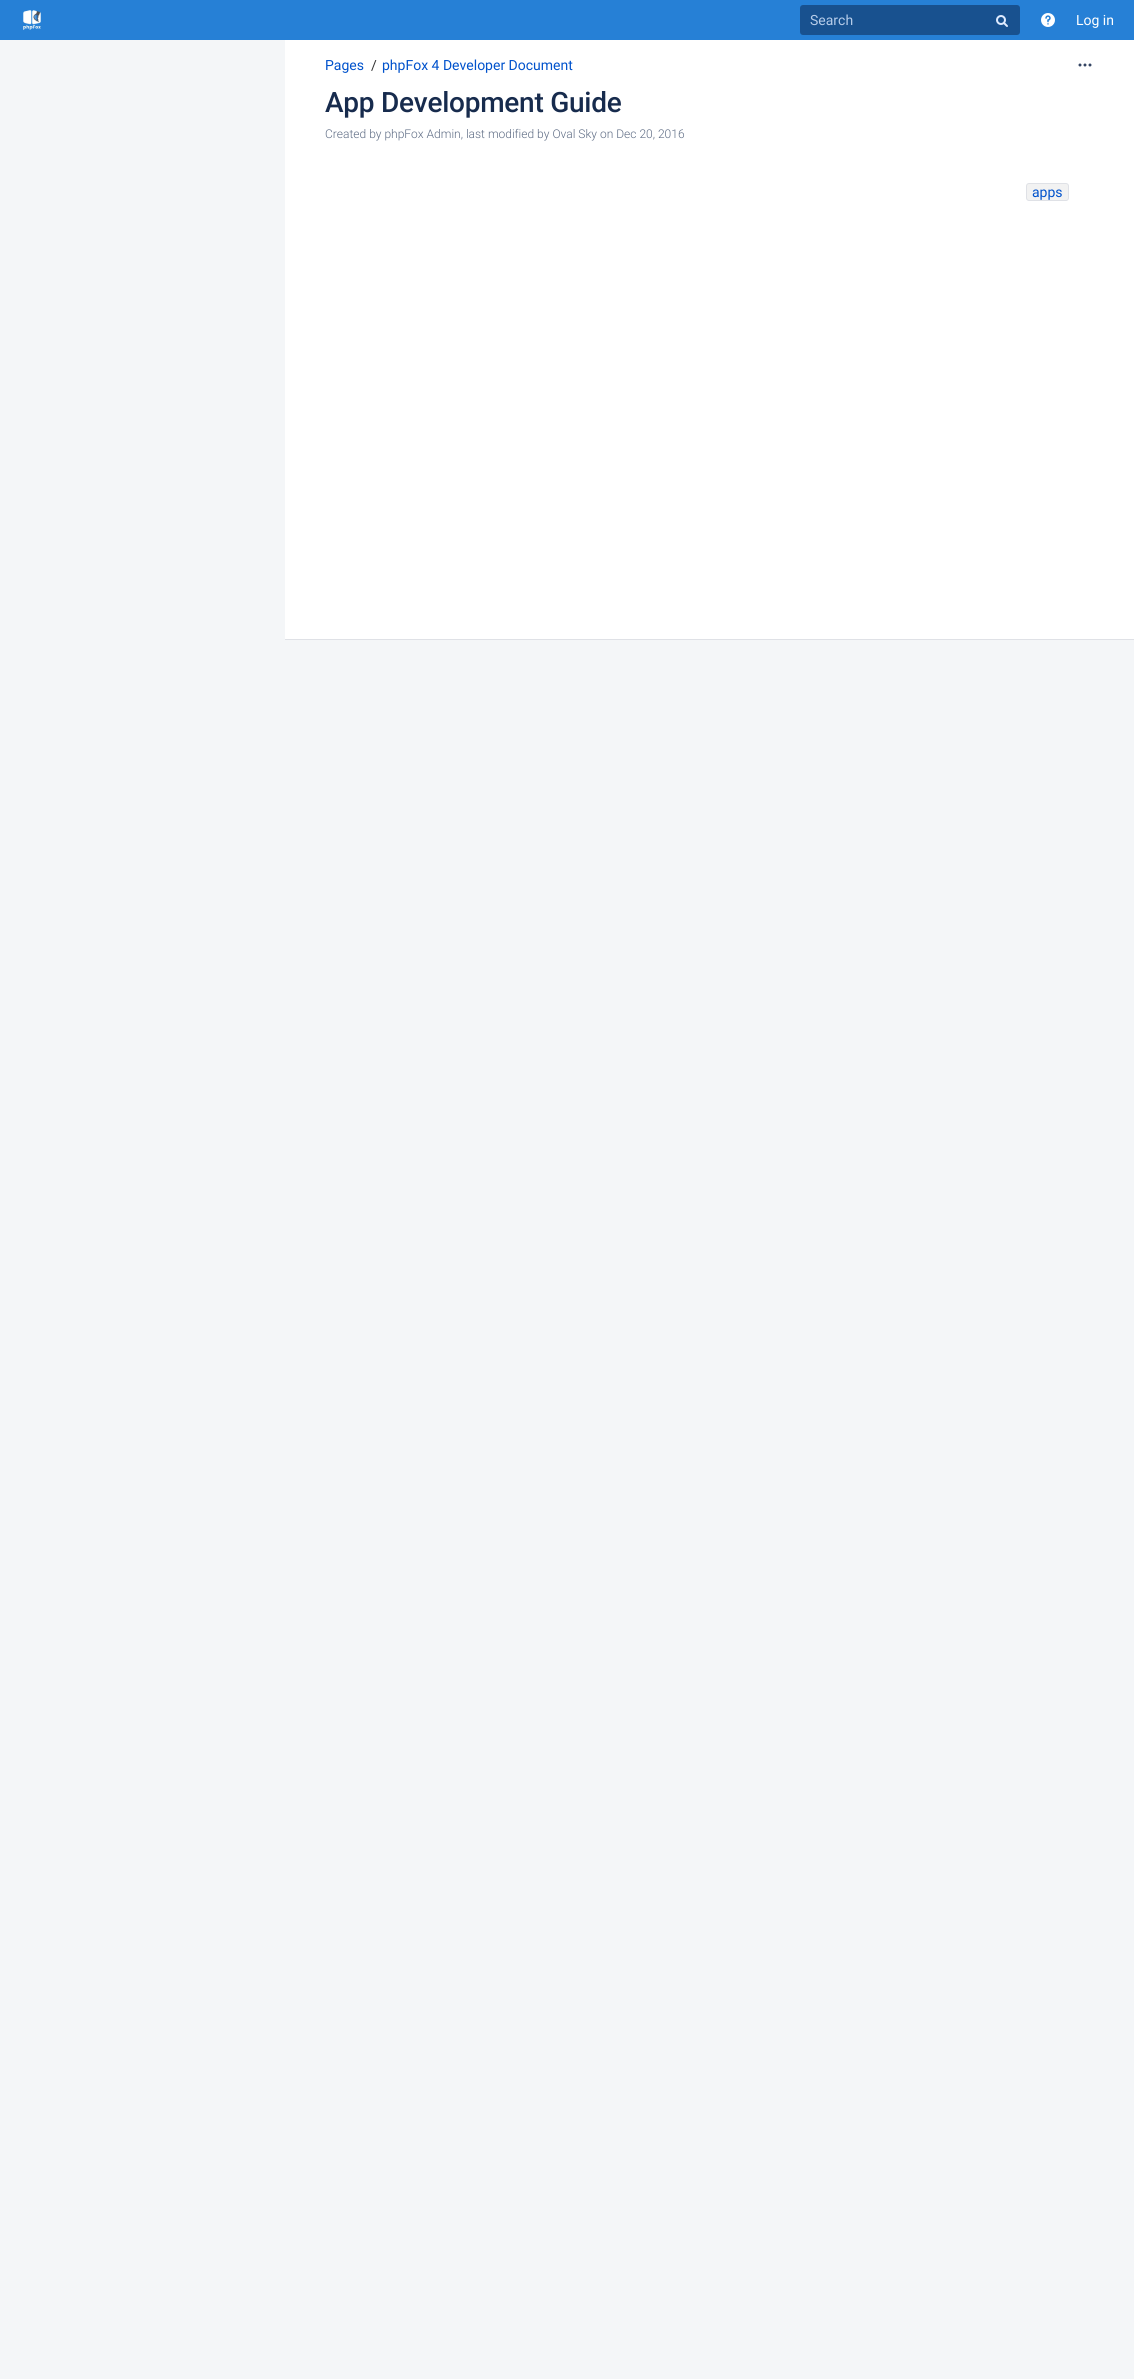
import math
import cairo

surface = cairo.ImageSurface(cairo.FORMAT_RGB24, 1134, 2379)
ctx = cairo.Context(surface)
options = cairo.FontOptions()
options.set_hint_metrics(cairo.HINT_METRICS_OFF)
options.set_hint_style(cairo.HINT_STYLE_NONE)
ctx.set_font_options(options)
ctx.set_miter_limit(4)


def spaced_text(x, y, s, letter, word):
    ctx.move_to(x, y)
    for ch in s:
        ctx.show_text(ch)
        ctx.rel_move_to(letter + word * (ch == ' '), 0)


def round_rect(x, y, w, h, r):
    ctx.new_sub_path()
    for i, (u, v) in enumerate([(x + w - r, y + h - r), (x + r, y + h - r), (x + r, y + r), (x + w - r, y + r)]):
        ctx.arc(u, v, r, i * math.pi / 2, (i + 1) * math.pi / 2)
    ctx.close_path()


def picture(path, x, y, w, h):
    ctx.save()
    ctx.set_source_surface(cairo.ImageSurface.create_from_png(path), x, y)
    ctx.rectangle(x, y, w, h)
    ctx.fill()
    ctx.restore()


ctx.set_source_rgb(0.957, 0.961, 0.969)
ctx.paint()
ctx.set_source_rgb(0.149, 0.502, 0.839)
ctx.rectangle(0, 0, 1134, 40)
ctx.fill()
picture("img1.png", 23, 10, 18, 20)
ctx.set_source_rgb(0.094, 0.318, 0.561)
round_rect(800, 5, 220, 30, 3)
ctx.fill()
ctx.select_font_face("Roboto")
ctx.set_font_size(14)
ctx.set_source_rgb(0.714, 0.8, 0.914)
ctx.move_to(810, 25)
ctx.show_text("Search")
picture("img2.png", 996, 15, 12, 12)
picture("img3.png", 1041, 13, 14, 14)
ctx.set_source_rgb(1, 1, 1)
ctx.move_to(1076, 25)
ctx.show_text("Log in")
ctx.rectangle(285, 40, 849, 599)
ctx.fill()
ctx.set_source_rgb(0.875, 0.882, 0.902)
ctx.rectangle(285, 639, 849, 1)
ctx.fill()
ctx.set_source_rgb(0, 0.322, 0.8)
ctx.move_to(325, 70)
ctx.show_text("Pages")
ctx.set_source_rgb(0.2, 0.2, 0.2)
ctx.move_to(371, 70)
ctx.show_text("/")
ctx.set_source_rgb(0, 0.322, 0.8)
ctx.move_to(382, 70)
ctx.show_text("phpFox 4 Developer Document")
ctx.select_font_face("Roboto Medium")
ctx.set_font_size(28)
ctx.set_source_rgb(0.09, 0.169, 0.302)
spaced_text(325, 112, "App Development Guide", -0.25, 0)
picture("img4.png", 1078, 63, 14, 4)
ctx.select_font_face("Roboto Light")
ctx.set_font_size(12)
ctx.set_source_rgb(0.369, 0.424, 0.518)
ctx.move_to(325, 138)
ctx.show_text("Created by phpFox Admin, last modified by Oval Sky on Dec 20, 2016")
ctx.set_source_rgb(0.949, 0.949, 0.949)
round_rect(1026.5, 183.5, 42, 17, 2.5)
ctx.fill_preserve()
ctx.set_source_rgb(0.875, 0.882, 0.902)
ctx.set_line_width(1)
ctx.stroke()
ctx.select_font_face("Roboto")
ctx.set_font_size(14)
ctx.set_source_rgb(0, 0.322, 0.8)
ctx.move_to(1032, 197)
ctx.show_text("apps")
surface.write_to_png("page.png")
